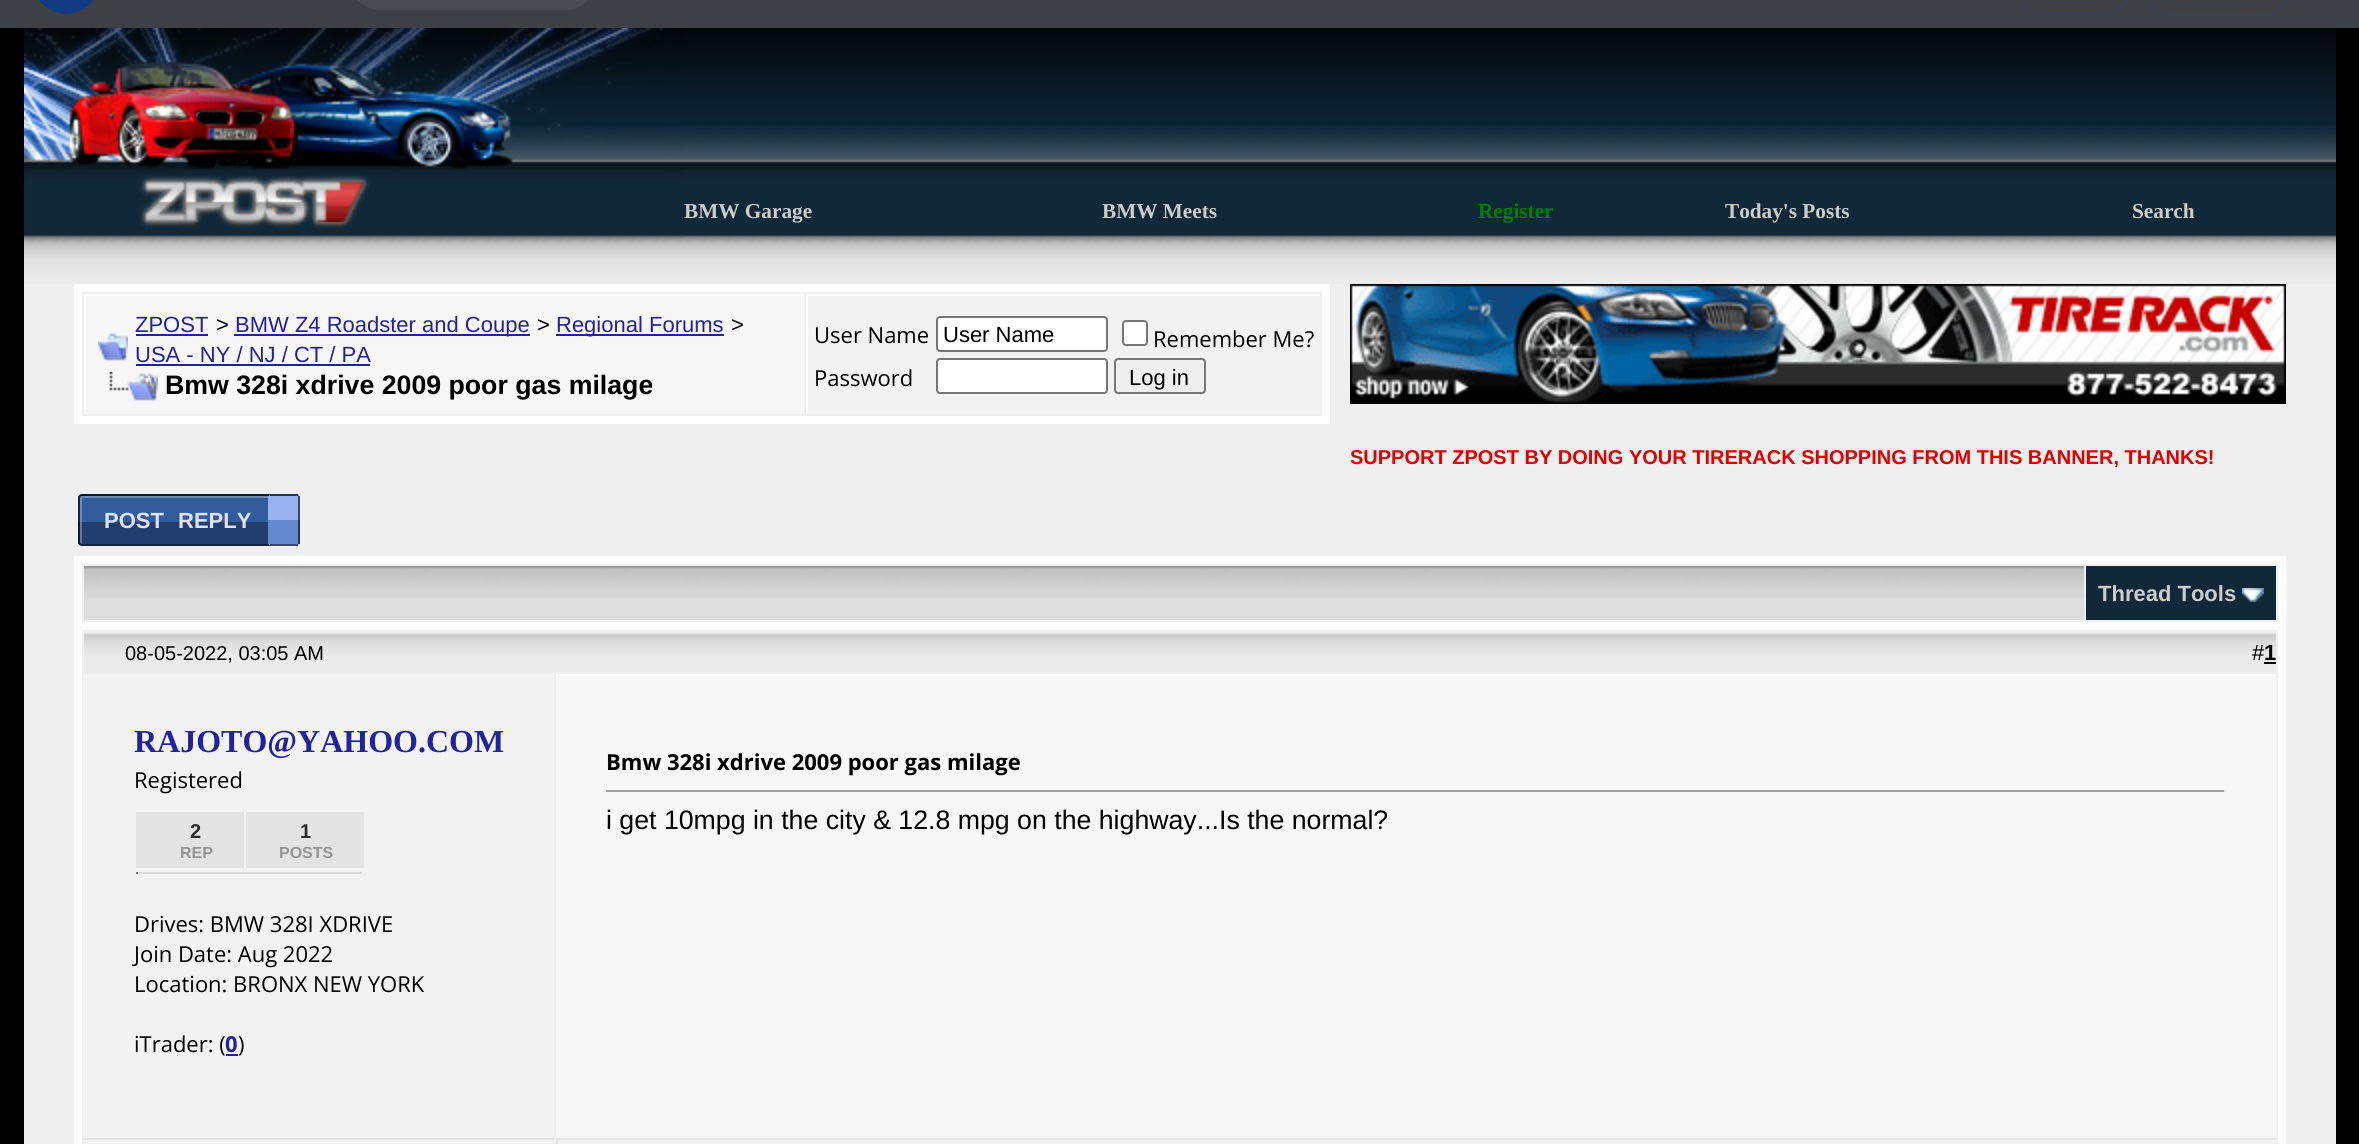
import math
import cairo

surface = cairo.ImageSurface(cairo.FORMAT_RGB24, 2359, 1144)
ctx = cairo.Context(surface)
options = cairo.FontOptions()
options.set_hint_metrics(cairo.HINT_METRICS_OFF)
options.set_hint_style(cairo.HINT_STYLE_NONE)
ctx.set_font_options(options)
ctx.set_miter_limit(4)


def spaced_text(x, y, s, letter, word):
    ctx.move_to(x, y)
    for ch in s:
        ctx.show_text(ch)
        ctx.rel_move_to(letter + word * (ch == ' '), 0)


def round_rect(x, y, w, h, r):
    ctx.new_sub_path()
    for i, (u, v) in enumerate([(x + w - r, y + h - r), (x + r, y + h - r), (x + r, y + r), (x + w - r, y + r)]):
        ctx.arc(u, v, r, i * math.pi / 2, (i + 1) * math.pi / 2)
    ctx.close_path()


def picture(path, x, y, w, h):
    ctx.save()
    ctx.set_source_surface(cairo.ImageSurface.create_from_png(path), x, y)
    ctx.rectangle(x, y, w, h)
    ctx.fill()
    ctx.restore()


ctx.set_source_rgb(0, 0, 0)
ctx.paint()
ctx.set_source_rgb(0.243, 0.251, 0.275)
ctx.rectangle(0, 0, 2359, 28)
ctx.fill()
picture("img1.png", 39, 0, 54, 14)
ctx.set_source_rgb(0.286, 0.294, 0.318)
round_rect(350, -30, 246, 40, 30)
ctx.fill()
round_rect(2015, -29, 116, 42, 27)
ctx.set_source_rgb(0.235, 0.255, 0.31)
ctx.stroke()
round_rect(2145, -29, 146, 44, 27)
ctx.stroke()
picture("img2.png", 24, 28, 2312, 256)
picture("img3.png", 24, 28, 660, 210)
ctx.select_font_face("Liberation Serif", cairo.FONT_SLANT_NORMAL, cairo.FONT_WEIGHT_BOLD)
ctx.set_font_size(21.25)
ctx.set_source_rgb(0.8, 0.8, 0.8)
ctx.move_to(684, 218)
ctx.show_text("BMW Garage")
ctx.move_to(1102, 218)
ctx.show_text("BMW Meets")
ctx.set_source_rgb(0, 0.502, 0)
ctx.move_to(1478, 218)
ctx.show_text("Register")
ctx.set_source_rgb(0.8, 0.8, 0.8)
ctx.move_to(1725, 218)
ctx.show_text("Today's Posts")
ctx.move_to(2132, 218)
ctx.show_text("Search")
ctx.set_source_rgb(0.937, 0.937, 0.937)
ctx.rectangle(24, 284, 2312, 860)
ctx.fill()
ctx.rectangle(78, 288, 1248, 132)
ctx.set_source_rgb(1, 1, 1)
ctx.set_line_width(8)
ctx.stroke()
ctx.set_source_rgb(0.965, 0.965, 0.965)
ctx.rectangle(86, 296, 718, 118)
ctx.fill()
ctx.set_source_rgb(1, 1, 1)
ctx.rectangle(84, 294, 720, 2)
ctx.fill()
ctx.rectangle(84, 294, 2, 120)
ctx.fill()
picture("img4.png", 98, 333, 30, 28)
ctx.select_font_face("Liberation Sans")
ctx.set_font_size(22)
ctx.set_source_rgb(0.133, 0.133, 0.612)
ctx.move_to(135, 332)
ctx.show_text("ZPOST")
ctx.rectangle(136, 334, 72, 2)
ctx.fill()
ctx.set_source_rgb(0, 0, 0)
ctx.move_to(216, 332)
ctx.show_text(">")
ctx.set_source_rgb(0.133, 0.133, 0.612)
ctx.rectangle(234, 334, 296, 2)
ctx.fill()
ctx.move_to(235, 332)
ctx.show_text("BMW Z4 Roadster and Coupe")
ctx.set_source_rgb(0, 0, 0)
ctx.move_to(537, 332)
ctx.show_text(">")
ctx.set_source_rgb(0.133, 0.133, 0.612)
ctx.rectangle(556, 334, 168, 2)
ctx.fill()
ctx.move_to(556, 332)
ctx.show_text("Regional Forums")
ctx.set_source_rgb(0, 0, 0)
ctx.move_to(731, 332)
ctx.show_text(">")
ctx.set_source_rgb(0.133, 0.133, 0.612)
ctx.move_to(135, 362)
ctx.show_text("USA - NY / NJ / CT / PA")
ctx.rectangle(136, 364, 234, 2)
ctx.fill()
picture("img5.png", 109, 372, 49, 29)
ctx.select_font_face("Liberation Sans", cairo.FONT_SLANT_NORMAL, cairo.FONT_WEIGHT_BOLD)
ctx.set_font_size(26.7)
ctx.set_source_rgb(0, 0, 0)
ctx.move_to(165, 394)
ctx.show_text("Bmw 328i xdrive 2009 poor gas milage")
ctx.set_source_rgb(0.949, 0.949, 0.949)
ctx.rectangle(808, 296, 512, 118)
ctx.fill()
ctx.set_source_rgb(1, 1, 1)
ctx.rectangle(806, 294, 514, 2)
ctx.fill()
ctx.rectangle(806, 294, 2, 120)
ctx.fill()
ctx.select_font_face("Open Sans")
ctx.set_font_size(22)
ctx.set_source_rgb(0, 0, 0)
ctx.move_to(814, 343)
ctx.show_text("User Name")
ctx.set_source_rgb(1, 1, 1)
round_rect(937, 317, 170, 34, 3)
ctx.fill_preserve()
ctx.set_source_rgb(0.463, 0.463, 0.463)
ctx.set_line_width(2)
ctx.stroke()
ctx.select_font_face("Liberation Sans")
ctx.set_source_rgb(0, 0, 0)
ctx.move_to(943, 342)
ctx.show_text("User Name")
ctx.set_source_rgb(1, 1, 1)
round_rect(1123, 321, 24, 24, 3)
ctx.fill_preserve()
ctx.set_source_rgb(0.463, 0.463, 0.463)
ctx.stroke()
ctx.select_font_face("Open Sans")
ctx.set_source_rgb(0, 0, 0)
ctx.move_to(1153, 347)
ctx.show_text("Remember Me?")
ctx.move_to(814, 386)
ctx.show_text("Password")
ctx.set_source_rgb(1, 1, 1)
round_rect(937, 359, 170, 34, 3)
ctx.fill_preserve()
ctx.set_source_rgb(0.463, 0.463, 0.463)
ctx.stroke()
ctx.set_source_rgb(0.937, 0.937, 0.937)
round_rect(1115, 359, 90, 34, 3)
ctx.fill_preserve()
ctx.set_source_rgb(0.463, 0.463, 0.463)
ctx.stroke()
ctx.select_font_face("Liberation Sans")
ctx.set_source_rgb(0, 0, 0)
ctx.move_to(1129, 385)
ctx.show_text("Log in")
picture("img6.png", 1350, 284, 936, 120)
ctx.select_font_face("Liberation Sans", cairo.FONT_SLANT_NORMAL, cairo.FONT_WEIGHT_BOLD)
ctx.set_font_size(20)
ctx.set_source_rgb(0.878, 0, 0)
ctx.move_to(1350, 464)
ctx.show_text("SUPPORT ZPOST BY DOING YOUR TIRERACK SHOPPING FROM THIS BANNER, THANKS!")
ctx.save()
round_rect(78, 494, 198, 52, 4)
ctx.clip()
ctx.set_source_rgb(0.133, 0.243, 0.431)
ctx.rectangle(78, 494, 198, 2)
ctx.fill()
ctx.restore()
ctx.set_source_rgb(0.192, 0.357, 0.6)
ctx.rectangle(78, 496, 191, 26)
ctx.fill()
ctx.set_source_rgb(0.133, 0.243, 0.431)
ctx.rectangle(78, 522, 191, 22)
ctx.fill()
ctx.save()
round_rect(78, 494, 198, 52, 4)
ctx.clip()
ctx.set_source_rgb(0.192, 0.357, 0.6)
ctx.rectangle(78, 544, 198, 2)
ctx.fill()
ctx.restore()
ctx.set_source_rgba(1, 1, 1, 0.3)
ctx.new_path()
ctx.move_to(84, 498)
ctx.line_to(274, 498)
ctx.curve_to(274, 497, 273, 496, 272, 496)
ctx.line_to(82, 496)
ctx.curve_to(81, 496, 80, 497, 80, 498)
ctx.line_to(80, 542)
ctx.curve_to(80, 543, 81, 544, 82, 544)
ctx.line_to(82, 500)
ctx.curve_to(82, 499, 83, 498, 84, 498)
ctx.close_path()
ctx.fill()
round_rect(79, 495, 196, 50, 3)
ctx.set_source_rgba(0, 0, 0, 0.6)
ctx.stroke()
ctx.set_font_size(22)
ctx.set_source_rgb(0.886, 0.886, 0.969)
spaced_text(104, 528, "POST REPLY", 0, 8)
ctx.save()
round_rect(268, 494, 32, 52, 4)
ctx.clip()
ctx.set_source_rgb(0.392, 0.533, 0.816)
ctx.rectangle(268, 494, 32, 2)
ctx.fill()
ctx.restore()
ctx.set_source_rgb(0.592, 0.69, 0.937)
ctx.rectangle(268, 496, 32, 24)
ctx.fill()
ctx.set_source_rgb(0.392, 0.533, 0.816)
ctx.rectangle(268, 520, 32, 24)
ctx.fill()
ctx.save()
round_rect(268, 494, 32, 52, 4)
ctx.clip()
ctx.set_source_rgb(0.592, 0.69, 0.937)
ctx.rectangle(268, 544, 32, 2)
ctx.fill()
ctx.restore()
ctx.set_source_rgba(0, 0, 0, 0.6)
ctx.rectangle(270, 494, 28, 2)
ctx.fill()
ctx.rectangle(298, 496, 2, 48)
ctx.fill()
ctx.rectangle(270, 544, 28, 2)
ctx.fill()
ctx.set_source_rgb(1, 1, 1)
ctx.rectangle(74, 556, 2212, 8)
ctx.fill()
ctx.rectangle(2278, 556, 8, 66)
ctx.fill()
ctx.rectangle(74, 556, 8, 66)
ctx.fill()
ctx.set_source_rgb(0.867, 0.867, 0.867)
ctx.rectangle(84, 598, 2000, 22)
ctx.fill()
picture("img7.png", 84, 566, 2000, 32)
ctx.set_source_rgb(0.067, 0.157, 0.22)
ctx.rectangle(2086, 566, 190, 54)
ctx.fill()
ctx.set_source_rgb(0.8, 0.8, 0.8)
ctx.move_to(2098, 601)
ctx.show_text("Thread Tools")
picture("img8.png", 2242, 588, 22, 14)
ctx.rectangle(78, 626, 2204, 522)
ctx.set_source_rgb(1, 1, 1)
ctx.set_line_width(8)
ctx.stroke()
picture("img9.png", 84, 632, 472, 40)
ctx.select_font_face("Liberation Sans")
ctx.set_font_size(20)
ctx.set_source_rgb(0, 0, 0)
ctx.move_to(125, 660)
ctx.show_text("08-05-2022, 03:05 AM")
picture("img10.png", 556, 632, 1720, 40)
ctx.set_font_size(22)
ctx.move_to(2252, 660)
ctx.show_text("#")
ctx.select_font_face("Liberation Sans", cairo.FONT_SLANT_NORMAL, cairo.FONT_WEIGHT_BOLD)
ctx.move_to(2264, 660)
ctx.show_text("1")
ctx.rectangle(2264, 662, 12, 2)
ctx.fill()
ctx.set_source_rgb(0.949, 0.949, 0.949)
ctx.rectangle(84, 674, 470, 464)
ctx.fill()
ctx.select_font_face("Liberation Serif", cairo.FONT_SLANT_NORMAL, cairo.FONT_WEIGHT_BOLD)
ctx.set_font_size(32)
ctx.set_source_rgb(0.133, 0.133, 0.612)
ctx.move_to(134, 752)
ctx.show_text("RAJOTO@YAHOO.COM")
ctx.select_font_face("Open Sans")
ctx.set_font_size(22)
ctx.set_source_rgb(0, 0, 0)
ctx.move_to(134, 788)
ctx.show_text("Registered")
ctx.set_source_rgb(0.89, 0.89, 0.89)
ctx.rectangle(136, 812, 108, 56)
ctx.fill()
ctx.select_font_face("Liberation Sans", cairo.FONT_SLANT_NORMAL, cairo.FONT_WEIGHT_BOLD)
ctx.set_font_size(20)
ctx.set_source_rgb(0.176, 0.176, 0.176)
ctx.move_to(190, 838)
ctx.show_text("2")
ctx.set_font_size(16)
ctx.set_source_rgb(0.58, 0.58, 0.58)
ctx.move_to(180, 858)
ctx.show_text("REP")
ctx.set_source_rgb(0.89, 0.89, 0.89)
ctx.rectangle(246, 812, 118, 56)
ctx.fill()
ctx.set_font_size(20)
ctx.set_source_rgb(0.176, 0.176, 0.176)
ctx.move_to(300, 838)
ctx.show_text("1")
ctx.set_font_size(16)
ctx.set_source_rgb(0.58, 0.58, 0.58)
ctx.move_to(279, 858)
ctx.show_text("POSTS")
ctx.set_source_rgb(0.855, 0.855, 0.855)
ctx.rectangle(136, 872, 226, 2)
ctx.fill()
ctx.set_source_rgb(0.471, 0.471, 0.471)
ctx.rectangle(136, 872, 2, 2)
ctx.fill()
ctx.select_font_face("Open Sans")
ctx.set_font_size(22)
ctx.set_source_rgb(0, 0, 0)
ctx.move_to(134, 932)
ctx.show_text("Drives: BMW 328I XDRIVE")
ctx.move_to(134, 962)
ctx.show_text("Join Date: Aug 2022")
ctx.move_to(134, 992)
ctx.show_text("Location: BRONX NEW YORK")
ctx.move_to(134, 1052)
ctx.show_text("iTrader: (")
ctx.select_font_face("Open Sans", cairo.FONT_SLANT_NORMAL, cairo.FONT_WEIGHT_BOLD)
ctx.set_source_rgb(0.133, 0.133, 0.612)
ctx.move_to(225, 1052)
ctx.show_text("0")
ctx.rectangle(226, 1054, 12, 2)
ctx.fill()
ctx.select_font_face("Open Sans")
ctx.set_source_rgb(0, 0, 0)
ctx.move_to(238, 1052)
ctx.show_text(")")
ctx.set_source_rgb(0.965, 0.965, 0.965)
ctx.rectangle(556, 676, 1720, 462)
ctx.fill()
ctx.set_source_rgb(1, 1, 1)
ctx.rectangle(556, 674, 1722, 2)
ctx.fill()
ctx.set_source_rgb(0.933, 0.933, 0.933)
ctx.rectangle(2276, 674, 2, 2)
ctx.fill()
ctx.select_font_face("Open Sans", cairo.FONT_SLANT_NORMAL, cairo.FONT_WEIGHT_BOLD)
ctx.set_source_rgb(0, 0, 0)
ctx.move_to(606, 770)
ctx.show_text("Bmw 328i xdrive 2009 poor gas milage")
ctx.set_source_rgb(0.624, 0.624, 0.624)
ctx.rectangle(606, 790, 1620, 2)
ctx.fill()
ctx.set_source_rgb(0.933, 0.933, 0.933)
ctx.rectangle(2224, 790, 2, 2)
ctx.fill()
ctx.select_font_face("Liberation Sans")
ctx.set_font_size(26.7)
ctx.set_source_rgb(0, 0, 0)
ctx.move_to(606, 829)
ctx.show_text("i get 10mpg in the city & 12.8 mpg on the highway...Is the normal?")
ctx.set_source_rgb(0.949, 0.949, 0.949)
ctx.rectangle(82, 1138, 2196, 6)
ctx.fill()
ctx.set_source_rgb(0.89, 0.89, 0.89)
ctx.new_path()
ctx.move_to(82, 1138)
ctx.line_to(556, 1138)
ctx.line_to(554, 1140)
ctx.line_to(84, 1140)
ctx.close_path()
ctx.fill()
ctx.set_source_rgb(0.933, 0.933, 0.933)
ctx.new_path()
ctx.move_to(556, 1138)
ctx.line_to(556, 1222)
ctx.line_to(554, 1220)
ctx.line_to(554, 1140)
ctx.close_path()
ctx.fill()
ctx.new_path()
ctx.move_to(82, 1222)
ctx.line_to(82, 1138)
ctx.line_to(84, 1140)
ctx.line_to(84, 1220)
ctx.close_path()
ctx.fill()
ctx.set_source_rgb(0.89, 0.89, 0.89)
ctx.new_path()
ctx.move_to(556, 1138)
ctx.line_to(2278, 1138)
ctx.line_to(2276, 1140)
ctx.line_to(558, 1140)
ctx.close_path()
ctx.fill()
ctx.set_source_rgb(0.933, 0.933, 0.933)
ctx.new_path()
ctx.move_to(2278, 1138)
ctx.line_to(2278, 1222)
ctx.line_to(2276, 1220)
ctx.line_to(2276, 1140)
ctx.close_path()
ctx.fill()
ctx.set_source_rgba(0, 0, 0, 0.06)
ctx.new_path()
ctx.move_to(556, 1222)
ctx.line_to(556, 1138)
ctx.line_to(558, 1140)
ctx.line_to(558, 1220)
ctx.close_path()
ctx.fill()
surface.write_to_png("page.png")
